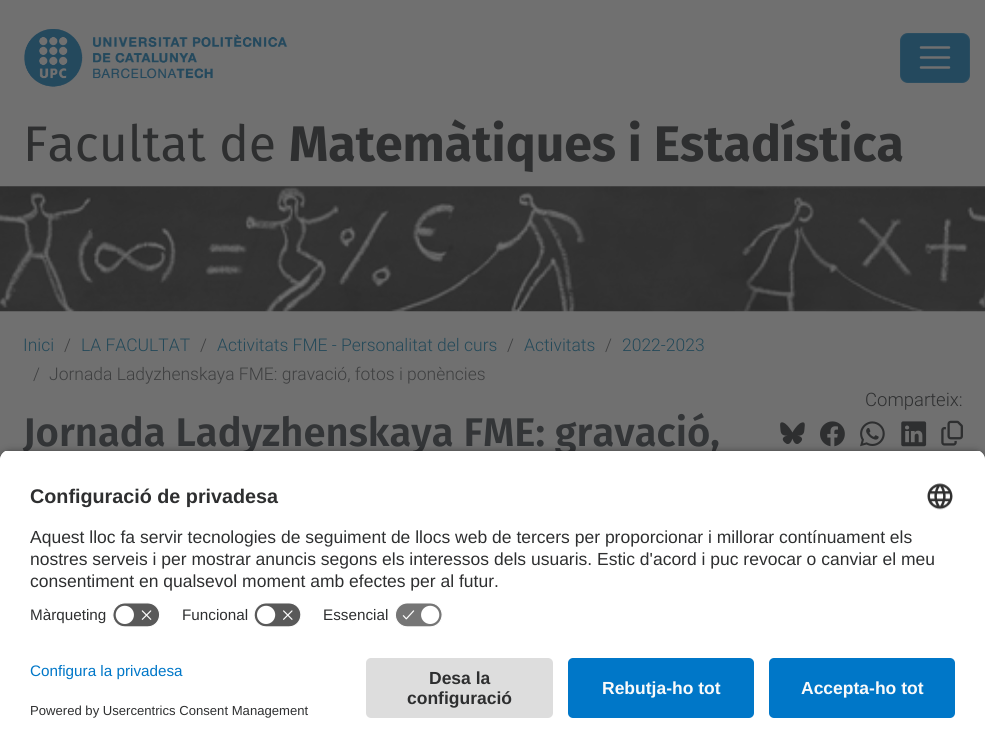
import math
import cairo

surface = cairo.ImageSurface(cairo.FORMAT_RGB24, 985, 747)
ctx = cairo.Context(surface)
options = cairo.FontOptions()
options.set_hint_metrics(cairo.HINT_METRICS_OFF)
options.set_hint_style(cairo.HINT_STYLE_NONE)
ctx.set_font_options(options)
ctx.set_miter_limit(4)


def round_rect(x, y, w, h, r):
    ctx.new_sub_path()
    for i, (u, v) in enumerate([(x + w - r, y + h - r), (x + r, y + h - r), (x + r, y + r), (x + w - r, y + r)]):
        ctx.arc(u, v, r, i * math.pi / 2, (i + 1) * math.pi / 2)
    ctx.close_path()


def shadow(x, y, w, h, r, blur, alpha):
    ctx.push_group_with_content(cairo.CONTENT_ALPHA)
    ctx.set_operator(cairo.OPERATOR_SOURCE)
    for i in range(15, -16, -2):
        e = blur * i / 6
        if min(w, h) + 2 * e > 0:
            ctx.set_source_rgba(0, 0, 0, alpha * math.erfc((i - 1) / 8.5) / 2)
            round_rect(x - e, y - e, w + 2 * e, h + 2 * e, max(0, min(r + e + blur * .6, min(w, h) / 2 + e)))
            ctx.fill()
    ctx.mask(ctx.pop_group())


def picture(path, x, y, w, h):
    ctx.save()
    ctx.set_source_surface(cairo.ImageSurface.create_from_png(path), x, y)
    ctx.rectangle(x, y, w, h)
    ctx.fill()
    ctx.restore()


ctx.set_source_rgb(0.439, 0.439, 0.439)
ctx.paint()
picture("img1.png", 24, 29, 264, 58)
ctx.set_source_rgb(0.141, 0.286, 0.369)
round_rect(900, 33, 70, 50, 8)
ctx.fill()
round_rect(900.5, 33.5, 69, 49, 7.5)
ctx.set_source_rgba(0.439, 0.439, 0.439, 0.1)
ctx.set_line_width(1)
ctx.stroke()
ctx.new_path()
ctx.move_to(921, 47.5)
ctx.line_to(949, 47.5)
ctx.move_to(921, 57.5)
ctx.line_to(949, 57.5)
ctx.move_to(921, 67.5)
ctx.line_to(949, 67.5)
ctx.set_source_rgb(0.439, 0.439, 0.439)
ctx.set_line_width(2.5)
ctx.set_line_cap(cairo.LINE_CAP_ROUND)
ctx.stroke()
ctx.select_font_face("Fira Sans")
ctx.set_font_size(50)
ctx.set_source_rgb(0.18, 0.184, 0.188)
ctx.move_to(23, 161)
ctx.show_text("Facultat de")
ctx.select_font_face("Fira Sans", cairo.FONT_SLANT_NORMAL, cairo.FONT_WEIGHT_BOLD)
ctx.move_to(289, 161)
ctx.show_text("Matemàtiques i Estadística")
picture("img2.png", 0, 186, 985, 126)
ctx.select_font_face("Roboto Light")
ctx.set_font_size(17.5)
ctx.set_source_rgb(0.141, 0.286, 0.349)
ctx.move_to(23, 351)
ctx.show_text("Inici")
ctx.set_source_rgb(0.243, 0.247, 0.251)
ctx.move_to(64, 351)
ctx.show_text("/")
ctx.set_source_rgb(0.141, 0.286, 0.349)
ctx.move_to(81, 351)
ctx.show_text("LA FACULTAT")
ctx.set_source_rgb(0.243, 0.247, 0.251)
ctx.move_to(200, 351)
ctx.show_text("/")
ctx.set_source_rgb(0.141, 0.286, 0.349)
ctx.move_to(217, 351)
ctx.show_text("Activitats FME - Personalitat del curs")
ctx.set_source_rgb(0.243, 0.247, 0.251)
ctx.move_to(507, 351)
ctx.show_text("/")
ctx.set_source_rgb(0.141, 0.286, 0.349)
ctx.move_to(524, 351)
ctx.show_text("Activitats")
ctx.set_source_rgb(0.243, 0.247, 0.251)
ctx.move_to(605, 351)
ctx.show_text("/")
ctx.set_source_rgb(0.141, 0.286, 0.349)
ctx.move_to(622, 351)
ctx.show_text("2022-2023")
ctx.set_source_rgb(0.243, 0.247, 0.251)
ctx.move_to(33, 380)
ctx.show_text("/")
ctx.move_to(49, 380)
ctx.show_text("Jornada Ladyzhenskaya FME: gravació, fotos i ponències")
ctx.set_font_size(18.5)
ctx.set_source_rgb(0.18, 0.184, 0.188)
ctx.move_to(865, 406)
ctx.show_text("Comparteix:")
picture("img3.png", 780, 422, 25, 22)
picture("img4.png", 820, 421, 25, 26)
picture("img5.png", 860, 421, 25, 26)
picture("img6.png", 901, 421, 26, 26)
picture("img7.png", 941, 420, 22, 26)
ctx.select_font_face("Fira Sans SemiBold")
ctx.set_font_size(40)
ctx.set_source_rgb(0.2, 0.208, 0.216)
ctx.move_to(23, 446)
ctx.show_text("Jornada Ladyzhenskaya FME: gravació,")
ctx.set_source_rgb(0, 0, 0)
shadow(0, 454, 985, 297, 10, 4.5, 0.8)
ctx.save()
ctx.new_path()
ctx.move_to(10, 450)
ctx.line_to(975, 450)
ctx.curve_to(980.5, 450, 985, 454.5, 985, 460)
ctx.line_to(985, 648)
ctx.line_to(0, 648)
ctx.line_to(0, 460)
ctx.curve_to(0, 454.5, 4.5, 450, 10, 450)
ctx.close_path()
ctx.clip()
ctx.set_source_rgb(1, 1, 1)
ctx.rectangle(0, 451, 985, 197)
ctx.fill()
ctx.rectangle(0, 451, 985, 147)
ctx.fill()
ctx.restore()
ctx.select_font_face("Liberation Sans", cairo.FONT_SLANT_NORMAL, cairo.FONT_WEIGHT_BOLD)
ctx.set_font_size(19.75)
ctx.set_source_rgb(0.18, 0.184, 0.188)
ctx.move_to(30, 503)
ctx.show_text("Configuració de privadesa")
picture("img8.png", 927, 483, 26, 27)
ctx.select_font_face("Liberation Sans")
ctx.set_font_size(17.5)
ctx.move_to(30, 543)
ctx.show_text("Aquest lloc fa servir tecnologies de seguiment de llocs web de tercers per proporcionar i millorar contínuament els")
ctx.move_to(30, 565)
ctx.show_text("nostres serveis i per mostrar anuncis segons els interessos dels usuaris. Estic d'acord i puc revocar o canviar el meu")
ctx.move_to(30, 587)
ctx.show_text("consentiment en qualsevol moment amb efectes per al futur.")
ctx.set_font_size(15.25)
ctx.move_to(30, 620)
ctx.show_text("Màrqueting")
picture("img9.png", 112, 602, 48, 25)
ctx.move_to(182, 620)
ctx.show_text("Funcional")
picture("img10.png", 254, 603, 47, 24)
ctx.move_to(323, 620)
ctx.show_text("Essencial")
picture("img11.png", 395, 603, 48, 24)
ctx.set_source_rgb(1, 1, 1)
ctx.rectangle(0, 648, 985, 99)
ctx.fill()
ctx.set_source_rgb(0, 0.467, 0.784)
ctx.move_to(30, 676)
ctx.show_text("Configura la privadesa")
ctx.set_font_size(13.1)
ctx.set_source_rgb(0.18, 0.184, 0.188)
ctx.move_to(30, 715)
ctx.show_text("Powered by Usercentrics Consent Management")
ctx.set_source_rgb(0.867, 0.867, 0.867)
round_rect(366, 658, 187, 60, 5)
ctx.fill()
ctx.select_font_face("Liberation Sans", cairo.FONT_SLANT_NORMAL, cairo.FONT_WEIGHT_BOLD)
ctx.set_font_size(17.5)
ctx.set_source_rgb(0.18, 0.184, 0.188)
ctx.move_to(429, 684)
ctx.show_text("Desa la")
ctx.move_to(407, 704)
ctx.show_text("configuració")
ctx.set_source_rgb(0, 0.467, 0.784)
round_rect(568, 658, 186, 60, 5)
ctx.fill()
ctx.set_source_rgb(0.98, 0.98, 0.98)
ctx.move_to(602, 694)
ctx.show_text("Rebutja-ho tot")
ctx.set_source_rgb(0, 0.467, 0.784)
round_rect(769, 658, 186, 60, 5)
ctx.fill()
ctx.set_source_rgb(0.98, 0.98, 0.98)
ctx.move_to(801, 694)
ctx.show_text("Accepta-ho tot")
surface.write_to_png("page.png")
